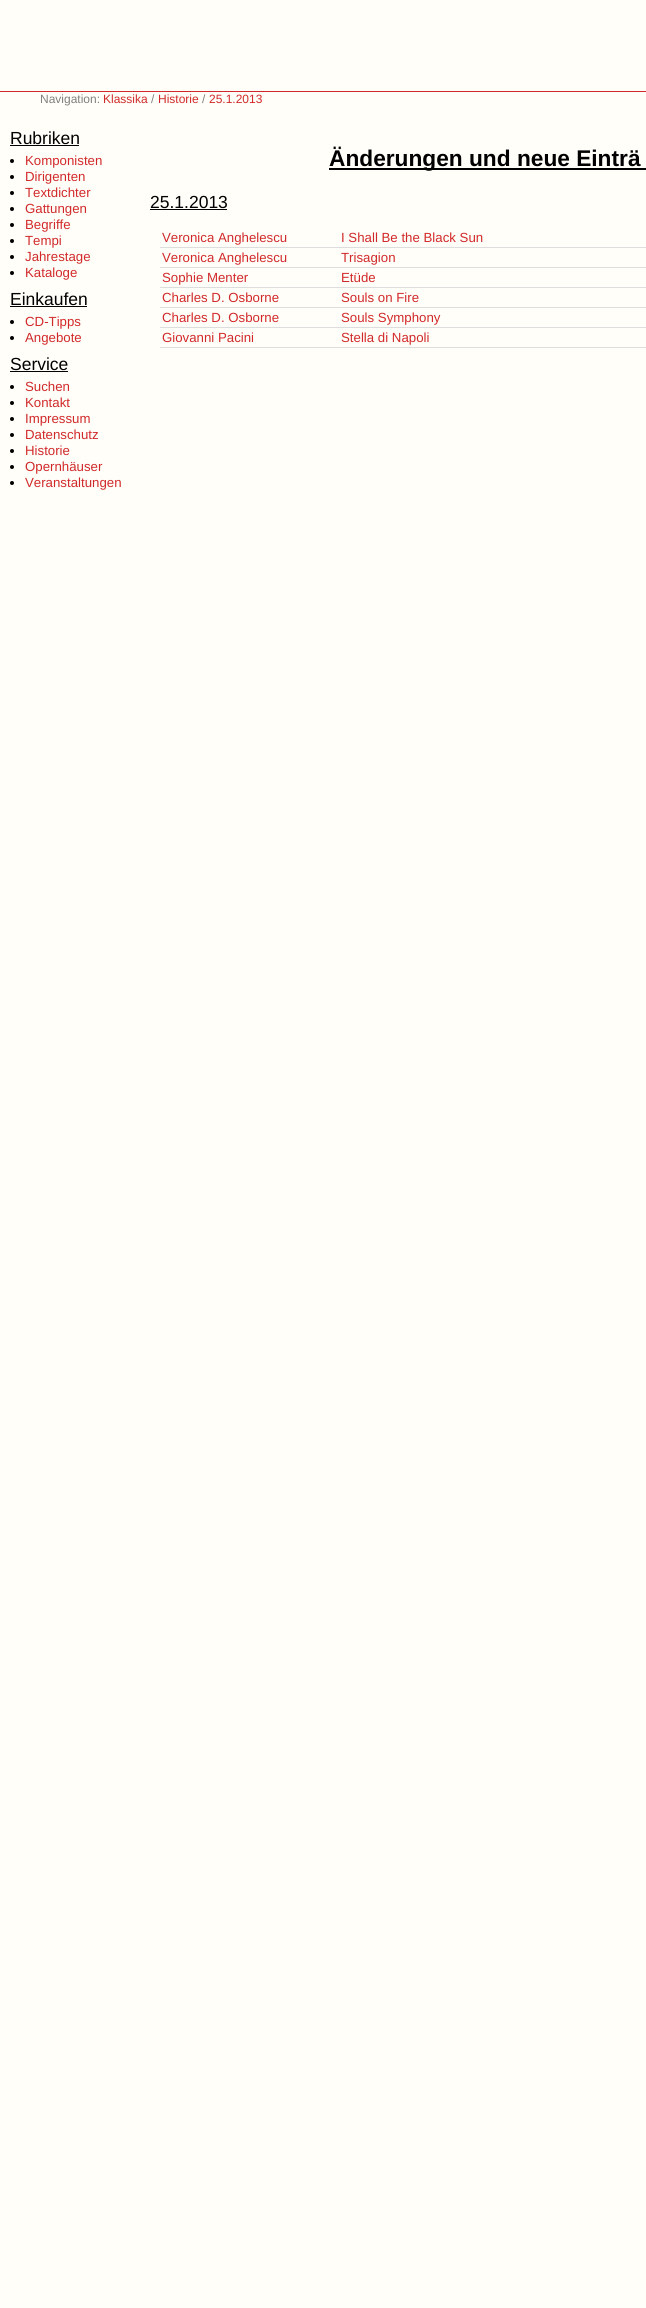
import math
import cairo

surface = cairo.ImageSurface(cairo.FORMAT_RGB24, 646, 2308)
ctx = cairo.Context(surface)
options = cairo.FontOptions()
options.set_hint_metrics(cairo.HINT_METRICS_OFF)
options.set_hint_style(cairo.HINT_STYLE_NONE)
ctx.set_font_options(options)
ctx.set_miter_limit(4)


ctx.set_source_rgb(1, 0.996, 0.976)
ctx.paint()
ctx.set_source_rgb(0.82, 0.161, 0.161)
ctx.rectangle(0, 91, 646, 1)
ctx.fill()
ctx.select_font_face("Liberation Sans")
ctx.set_font_size(12)
ctx.set_source_rgb(0.502, 0.502, 0.502)
ctx.move_to(40, 103)
ctx.show_text("Navigation:")
ctx.set_source_rgb(0.82, 0.161, 0.161)
ctx.move_to(103, 103)
ctx.show_text("Klassika")
ctx.set_source_rgb(0.502, 0.502, 0.502)
ctx.move_to(151, 103)
ctx.show_text("/")
ctx.set_source_rgb(0.82, 0.161, 0.161)
ctx.move_to(158, 103)
ctx.show_text("Historie")
ctx.set_source_rgb(0.502, 0.502, 0.502)
ctx.move_to(202, 103)
ctx.show_text("/")
ctx.set_source_rgb(0.82, 0.161, 0.161)
ctx.move_to(209, 103)
ctx.show_text("25.1.2013")
ctx.set_font_size(17.5)
ctx.set_source_rgb(0, 0, 0)
ctx.move_to(10, 144)
ctx.show_text("Rubriken")
ctx.rectangle(10, 145, 69, 1)
ctx.fill()
ctx.arc(12, 161, 2, 0, 2 * math.pi)
ctx.fill()
ctx.set_font_size(13.25)
ctx.set_source_rgb(0.82, 0.161, 0.161)
ctx.move_to(25, 165)
ctx.show_text("Komponisten")
ctx.set_source_rgb(0, 0, 0)
ctx.new_path()
ctx.arc(12, 177, 2, 0, 2 * math.pi)
ctx.fill()
ctx.set_source_rgb(0.82, 0.161, 0.161)
ctx.move_to(25, 181)
ctx.show_text("Dirigenten")
ctx.set_source_rgb(0, 0, 0)
ctx.new_path()
ctx.arc(12, 193, 2, 0, 2 * math.pi)
ctx.fill()
ctx.set_source_rgb(0.82, 0.161, 0.161)
ctx.move_to(25, 197)
ctx.show_text("Textdichter")
ctx.set_source_rgb(0, 0, 0)
ctx.new_path()
ctx.arc(12, 209, 2, 0, 2 * math.pi)
ctx.fill()
ctx.set_source_rgb(0.82, 0.161, 0.161)
ctx.move_to(25, 213)
ctx.show_text("Gattungen")
ctx.set_source_rgb(0, 0, 0)
ctx.new_path()
ctx.arc(12, 225, 2, 0, 2 * math.pi)
ctx.fill()
ctx.set_source_rgb(0.82, 0.161, 0.161)
ctx.move_to(25, 229)
ctx.show_text("Begriffe")
ctx.set_source_rgb(0, 0, 0)
ctx.new_path()
ctx.arc(12, 241, 2, 0, 2 * math.pi)
ctx.fill()
ctx.set_source_rgb(0.82, 0.161, 0.161)
ctx.move_to(25, 245)
ctx.show_text("Tempi")
ctx.set_source_rgb(0, 0, 0)
ctx.new_path()
ctx.arc(12, 257, 2, 0, 2 * math.pi)
ctx.fill()
ctx.set_source_rgb(0.82, 0.161, 0.161)
ctx.move_to(25, 261)
ctx.show_text("Jahrestage")
ctx.set_source_rgb(0, 0, 0)
ctx.new_path()
ctx.arc(12, 273, 2, 0, 2 * math.pi)
ctx.fill()
ctx.set_source_rgb(0.82, 0.161, 0.161)
ctx.move_to(25, 277)
ctx.show_text("Kataloge")
ctx.set_font_size(17.5)
ctx.set_source_rgb(0, 0, 0)
ctx.move_to(10, 305)
ctx.show_text("Einkaufen")
ctx.rectangle(10, 306, 77, 1)
ctx.fill()
ctx.arc(12, 322, 2, 0, 2 * math.pi)
ctx.fill()
ctx.set_font_size(13.25)
ctx.set_source_rgb(0.82, 0.161, 0.161)
ctx.move_to(25, 326)
ctx.show_text("CD-Tipps")
ctx.set_source_rgb(0, 0, 0)
ctx.new_path()
ctx.arc(12, 338, 2, 0, 2 * math.pi)
ctx.fill()
ctx.set_source_rgb(0.82, 0.161, 0.161)
ctx.move_to(25, 342)
ctx.show_text("Angebote")
ctx.set_font_size(17.5)
ctx.set_source_rgb(0, 0, 0)
ctx.move_to(10, 370)
ctx.show_text("Service")
ctx.rectangle(10, 371, 58, 1)
ctx.fill()
ctx.arc(12, 387, 2, 0, 2 * math.pi)
ctx.fill()
ctx.set_font_size(13.25)
ctx.set_source_rgb(0.82, 0.161, 0.161)
ctx.move_to(25, 391)
ctx.show_text("Suchen")
ctx.set_source_rgb(0, 0, 0)
ctx.new_path()
ctx.arc(12, 403, 2, 0, 2 * math.pi)
ctx.fill()
ctx.set_source_rgb(0.82, 0.161, 0.161)
ctx.move_to(25, 407)
ctx.show_text("Kontakt")
ctx.set_source_rgb(0, 0, 0)
ctx.new_path()
ctx.arc(12, 419, 2, 0, 2 * math.pi)
ctx.fill()
ctx.set_source_rgb(0.82, 0.161, 0.161)
ctx.move_to(25, 423)
ctx.show_text("Impressum")
ctx.set_source_rgb(0, 0, 0)
ctx.new_path()
ctx.arc(12, 435, 2, 0, 2 * math.pi)
ctx.fill()
ctx.set_source_rgb(0.82, 0.161, 0.161)
ctx.move_to(25, 439)
ctx.show_text("Datenschutz")
ctx.set_source_rgb(0, 0, 0)
ctx.new_path()
ctx.arc(12, 451, 2, 0, 2 * math.pi)
ctx.fill()
ctx.set_source_rgb(0.82, 0.161, 0.161)
ctx.move_to(25, 455)
ctx.show_text("Historie")
ctx.set_source_rgb(0, 0, 0)
ctx.new_path()
ctx.arc(12, 467, 2, 0, 2 * math.pi)
ctx.fill()
ctx.set_source_rgb(0.82, 0.161, 0.161)
ctx.move_to(25, 471)
ctx.show_text("Opernhäuser")
ctx.set_source_rgb(0, 0, 0)
ctx.new_path()
ctx.arc(12, 483, 2, 0, 2 * math.pi)
ctx.fill()
ctx.set_source_rgb(0.82, 0.161, 0.161)
ctx.move_to(25, 487)
ctx.show_text("Veranstaltungen")
ctx.set_source_rgb(0, 0, 0)
ctx.rectangle(329, 168, 317, 2)
ctx.fill()
ctx.select_font_face("Liberation Sans", cairo.FONT_SLANT_NORMAL, cairo.FONT_WEIGHT_BOLD)
ctx.set_font_size(22.7)
ctx.move_to(329, 166)
ctx.show_text("Änderungen und neue Einträ")
ctx.select_font_face("Liberation Sans")
ctx.set_font_size(17.5)
ctx.move_to(150, 208)
ctx.show_text("25.1.2013")
ctx.rectangle(150, 209, 77, 1)
ctx.fill()
ctx.set_source_rgb(0.867, 0.867, 0.867)
ctx.rectangle(160, 247, 486, 1)
ctx.fill()
ctx.set_font_size(13.25)
ctx.set_source_rgb(0.82, 0.161, 0.161)
ctx.move_to(162, 242)
ctx.show_text("Veronica Anghelescu")
ctx.move_to(341, 242)
ctx.show_text("I Shall Be the Black Sun")
ctx.set_source_rgb(0.867, 0.867, 0.867)
ctx.rectangle(160, 267, 486, 1)
ctx.fill()
ctx.set_source_rgb(0.82, 0.161, 0.161)
ctx.move_to(162, 262)
ctx.show_text("Veronica Anghelescu")
ctx.move_to(341, 262)
ctx.show_text("Trisagion")
ctx.set_source_rgb(0.867, 0.867, 0.867)
ctx.rectangle(160, 287, 486, 1)
ctx.fill()
ctx.set_source_rgb(0.82, 0.161, 0.161)
ctx.move_to(162, 282)
ctx.show_text("Sophie Menter")
ctx.move_to(341, 282)
ctx.show_text("Etüde")
ctx.set_source_rgb(0.867, 0.867, 0.867)
ctx.rectangle(160, 307, 486, 1)
ctx.fill()
ctx.set_source_rgb(0.82, 0.161, 0.161)
ctx.move_to(162, 302)
ctx.show_text("Charles D. Osborne")
ctx.move_to(341, 302)
ctx.show_text("Souls on Fire")
ctx.set_source_rgb(0.867, 0.867, 0.867)
ctx.rectangle(160, 327, 486, 1)
ctx.fill()
ctx.set_source_rgb(0.82, 0.161, 0.161)
ctx.move_to(162, 322)
ctx.show_text("Charles D. Osborne")
ctx.move_to(341, 322)
ctx.show_text("Souls Symphony")
ctx.set_source_rgb(0.867, 0.867, 0.867)
ctx.rectangle(160, 347, 486, 1)
ctx.fill()
ctx.set_source_rgb(0.82, 0.161, 0.161)
ctx.move_to(162, 342)
ctx.show_text("Giovanni Pacini")
ctx.move_to(341, 342)
ctx.show_text("Stella di Napoli")
surface.write_to_png("page.png")
